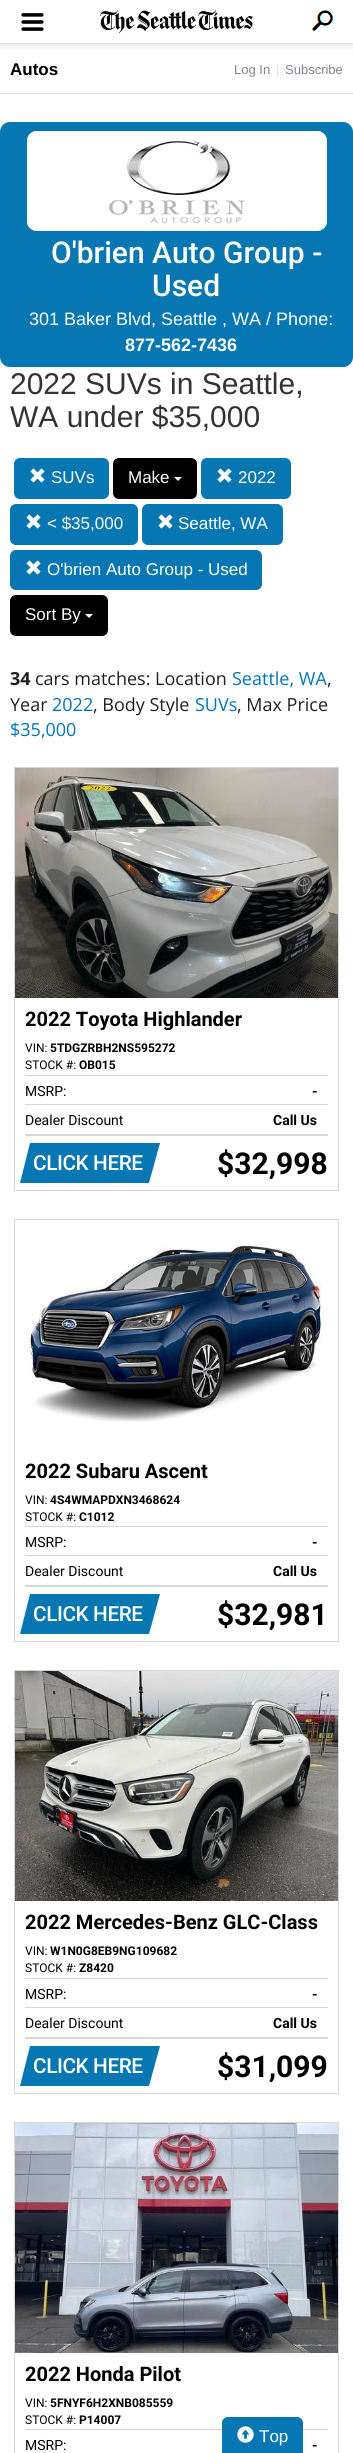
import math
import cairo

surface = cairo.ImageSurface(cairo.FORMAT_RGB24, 353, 2453)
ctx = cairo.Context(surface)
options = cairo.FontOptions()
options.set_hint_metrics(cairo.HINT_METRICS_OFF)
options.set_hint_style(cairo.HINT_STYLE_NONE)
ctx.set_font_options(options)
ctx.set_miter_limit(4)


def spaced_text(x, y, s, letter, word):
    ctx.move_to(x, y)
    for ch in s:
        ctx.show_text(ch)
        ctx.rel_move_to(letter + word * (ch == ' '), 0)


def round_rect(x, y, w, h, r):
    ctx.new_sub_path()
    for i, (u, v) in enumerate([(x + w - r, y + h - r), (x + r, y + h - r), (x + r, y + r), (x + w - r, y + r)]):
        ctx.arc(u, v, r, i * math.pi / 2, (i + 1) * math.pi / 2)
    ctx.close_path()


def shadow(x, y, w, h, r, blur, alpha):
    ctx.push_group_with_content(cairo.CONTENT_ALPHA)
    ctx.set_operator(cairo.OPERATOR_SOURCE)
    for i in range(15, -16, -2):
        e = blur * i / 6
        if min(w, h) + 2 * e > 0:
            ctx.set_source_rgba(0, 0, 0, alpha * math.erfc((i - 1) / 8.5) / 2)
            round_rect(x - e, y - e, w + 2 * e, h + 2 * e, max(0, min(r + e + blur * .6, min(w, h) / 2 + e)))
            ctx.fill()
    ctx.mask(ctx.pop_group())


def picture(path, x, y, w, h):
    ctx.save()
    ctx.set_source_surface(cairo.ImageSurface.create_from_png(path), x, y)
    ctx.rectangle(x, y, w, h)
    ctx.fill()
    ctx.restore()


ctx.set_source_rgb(1, 1, 1)
ctx.paint()
ctx.save()
ctx.rectangle(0, 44, 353, 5)
ctx.clip()
ctx.set_source_rgb(0, 0, 0)
shadow(0, 2, 353, 44, 0, 3.5, 0.1)
ctx.restore()
ctx.set_source_rgb(0.878, 0.878, 0.878)
ctx.rectangle(0, 43, 353, 1)
ctx.fill()
picture("img1.png", 21, 13, 23, 18)
picture("img2.png", 100, 10, 153, 23)
picture("img3.png", 312, 10, 21, 21)
ctx.rectangle(0, 93, 353, 1)
ctx.fill()
ctx.select_font_face("Liberation Sans", cairo.FONT_SLANT_NORMAL, cairo.FONT_WEIGHT_BOLD)
ctx.set_font_size(17)
ctx.set_source_rgb(0, 0, 0)
ctx.move_to(10, 75)
ctx.show_text("Autos")
ctx.select_font_face("Liberation Sans")
ctx.set_font_size(13)
ctx.set_source_rgb(0.494, 0.514, 0.545)
ctx.move_to(234, 74)
ctx.show_text("Log In")
ctx.set_source_rgb(0.878, 0.878, 0.878)
ctx.move_to(276, 74)
ctx.show_text("|")
ctx.set_source_rgb(0.494, 0.514, 0.545)
ctx.move_to(285, 74)
ctx.show_text("Subscribe")
ctx.set_source_rgb(0.027, 0.467, 0.702)
round_rect(0, 122, 353, 245, 10)
ctx.fill()
ctx.set_source_rgb(1, 1, 1)
round_rect(27, 131, 300, 100, 10)
ctx.fill()
picture("img4.png", 27, 131, 300, 100)
ctx.select_font_face("Roboto Medium")
ctx.set_font_size(30)
ctx.move_to(51, 263)
ctx.show_text("O'brien Auto Group -")
ctx.move_to(152, 296)
ctx.show_text("Used")
ctx.select_font_face("Liberation Sans")
ctx.set_font_size(18)
ctx.move_to(29, 325)
ctx.show_text("301 Baker Blvd, Seattle , WA / Phone:")
ctx.select_font_face("Liberation Sans", cairo.FONT_SLANT_NORMAL, cairo.FONT_WEIGHT_BOLD)
ctx.move_to(125, 351)
ctx.show_text("877-562-7436")
ctx.select_font_face("Liberation Sans")
ctx.set_font_size(30)
ctx.set_source_rgb(0.2, 0.2, 0.2)
ctx.move_to(10, 394)
ctx.show_text("2022 SUVs in Seattle,")
ctx.move_to(10, 427)
ctx.show_text("WA under $35,000")
ctx.set_source_rgb(0.027, 0.467, 0.702)
round_rect(14, 458, 95, 41, 6)
ctx.fill()
picture("img5.png", 30, 468, 15, 15)
ctx.set_font_size(17)
ctx.set_source_rgb(1, 1, 1)
ctx.move_to(51, 483)
ctx.show_text("SUVs")
ctx.set_source_rgb(0, 0, 0)
round_rect(113, 458, 84, 41, 6)
ctx.fill()
ctx.set_source_rgb(1, 1, 1)
ctx.move_to(128, 483)
ctx.show_text("Make")
ctx.new_path()
ctx.move_to(174, 477)
ctx.line_to(182, 477)
ctx.line_to(178, 481)
ctx.close_path()
ctx.fill()
ctx.set_source_rgb(0.027, 0.467, 0.702)
round_rect(201, 458, 90, 41, 6)
ctx.fill()
picture("img5.png", 217, 468, 15, 15)
ctx.set_source_rgb(1, 1, 1)
ctx.move_to(238, 483)
ctx.show_text("2022")
ctx.set_source_rgb(0.027, 0.467, 0.702)
round_rect(10, 504, 128, 41, 6)
ctx.fill()
picture("img5.png", 26, 514, 15, 15)
ctx.set_source_rgb(1, 1, 1)
ctx.move_to(47, 529)
ctx.show_text("< $35,000")
ctx.set_source_rgb(0.027, 0.467, 0.702)
round_rect(142, 504, 141, 41, 6)
ctx.fill()
picture("img5.png", 158, 514, 15, 15)
ctx.set_source_rgb(1, 1, 1)
ctx.move_to(178, 529)
ctx.show_text("Seattle, WA")
ctx.set_source_rgb(0.027, 0.467, 0.702)
round_rect(10, 550, 252, 40, 6)
ctx.fill()
picture("img5.png", 26, 560, 15, 15)
ctx.set_source_rgb(1, 1, 1)
ctx.move_to(47, 575)
ctx.show_text("O'brien Auto Group - Used")
ctx.set_source_rgb(0, 0, 0)
round_rect(10, 595, 98, 41, 6)
ctx.fill()
ctx.set_source_rgb(1, 1, 1)
ctx.move_to(25, 620)
ctx.show_text("Sort By")
ctx.new_path()
ctx.move_to(85, 614)
ctx.line_to(93, 614)
ctx.line_to(89, 618)
ctx.close_path()
ctx.fill()
ctx.select_font_face("Open Sans", cairo.FONT_SLANT_NORMAL, cairo.FONT_WEIGHT_BOLD)
ctx.set_font_size(18)
ctx.set_source_rgb(0.137, 0.122, 0.125)
ctx.move_to(10, 685)
ctx.show_text("34")
ctx.select_font_face("Open Sans")
ctx.move_to(35, 685)
ctx.show_text("cars matches: Location")
ctx.set_source_rgb(0, 0.451, 0.741)
ctx.move_to(232, 685)
ctx.show_text("Seattle, WA")
ctx.set_source_rgb(0.137, 0.122, 0.125)
ctx.move_to(327, 685)
ctx.show_text(",")
ctx.move_to(10, 711)
ctx.show_text("Year")
ctx.set_source_rgb(0, 0.451, 0.741)
ctx.move_to(52, 711)
ctx.show_text("2022")
ctx.set_source_rgb(0.137, 0.122, 0.125)
ctx.move_to(93, 711)
ctx.show_text(", Body Style")
ctx.set_source_rgb(0, 0.451, 0.741)
ctx.move_to(195, 711)
ctx.show_text("SUVs")
ctx.set_source_rgb(0.137, 0.122, 0.125)
ctx.move_to(237, 711)
ctx.show_text(", Max Price")
ctx.set_source_rgb(0, 0.451, 0.741)
ctx.move_to(10, 736)
ctx.show_text("$35,000")
ctx.rectangle(14.5, 767.5, 324, 423)
ctx.set_source_rgb(0.831, 0.847, 0.851)
ctx.set_line_width(1)
ctx.stroke()
picture("img6.png", 15, 768, 323, 230)
ctx.save()
ctx.rectangle(25, 1008, 217, 22)
ctx.clip()
ctx.select_font_face("Roboto", cairo.FONT_SLANT_NORMAL, cairo.FONT_WEIGHT_BOLD)
ctx.set_font_size(20)
ctx.set_source_rgb(0, 0, 0)
ctx.move_to(25, 1026)
ctx.show_text("2022 Toyota Highlander")
ctx.restore()
ctx.select_font_face("Roboto")
ctx.set_font_size(12)
ctx.set_source_rgb(0, 0, 0)
ctx.move_to(25, 1052)
ctx.show_text("VIN:")
ctx.select_font_face("Roboto", cairo.FONT_SLANT_NORMAL, cairo.FONT_WEIGHT_BOLD)
ctx.move_to(50, 1052)
ctx.show_text("5TDGZRBH2NS595272")
ctx.select_font_face("Roboto")
ctx.move_to(25, 1069)
ctx.show_text("STOCK #:")
ctx.select_font_face("Roboto", cairo.FONT_SLANT_NORMAL, cairo.FONT_WEIGHT_BOLD)
ctx.move_to(79, 1069)
ctx.show_text("OB015")
ctx.set_source_rgb(0.831, 0.847, 0.851)
ctx.rectangle(25, 1075, 303, 1)
ctx.fill()
ctx.rectangle(25, 1104, 303, 1)
ctx.fill()
ctx.select_font_face("Roboto")
ctx.set_font_size(14)
ctx.set_source_rgb(0, 0, 0)
ctx.move_to(25, 1096)
ctx.show_text("MSRP:")
ctx.select_font_face("Roboto", cairo.FONT_SLANT_NORMAL, cairo.FONT_WEIGHT_BOLD)
ctx.move_to(312, 1096)
ctx.show_text("-")
ctx.set_source_rgb(0.831, 0.847, 0.851)
ctx.rectangle(25, 1134, 303, 2)
ctx.fill()
ctx.select_font_face("Roboto")
ctx.set_source_rgb(0, 0, 0)
ctx.move_to(25, 1125)
ctx.show_text("Dealer Discount")
ctx.select_font_face("Roboto", cairo.FONT_SLANT_NORMAL, cairo.FONT_WEIGHT_BOLD)
ctx.move_to(273, 1125)
ctx.show_text("Call Us")
ctx.set_source_rgb(0.027, 0.467, 0.702)
ctx.new_path()
ctx.move_to(30, 1143)
ctx.line_to(160, 1143)
ctx.line_to(149, 1183)
ctx.line_to(20, 1183)
ctx.close_path()
ctx.fill()
ctx.select_font_face("Roboto Medium")
ctx.set_font_size(20.75)
ctx.set_source_rgb(1, 1, 1)
spaced_text(33, 1170, "CLICK HERE", -0.4, 0)
ctx.select_font_face("Roboto", cairo.FONT_SLANT_NORMAL, cairo.FONT_WEIGHT_BOLD)
ctx.set_font_size(30)
ctx.set_source_rgb(0, 0, 0)
ctx.move_to(217, 1174)
ctx.show_text("$32,998")
ctx.rectangle(14.5, 1219.5, 324, 422)
ctx.set_source_rgb(0.831, 0.847, 0.851)
ctx.stroke()
picture("img7.png", 26, 1244, 301, 178)
ctx.set_font_size(20)
ctx.set_source_rgb(0, 0, 0)
ctx.move_to(25, 1478)
ctx.show_text("2022 Subaru Ascent")
ctx.select_font_face("Roboto")
ctx.set_font_size(12)
ctx.move_to(25, 1504)
ctx.show_text("VIN:")
ctx.select_font_face("Roboto", cairo.FONT_SLANT_NORMAL, cairo.FONT_WEIGHT_BOLD)
ctx.move_to(50, 1504)
ctx.show_text("4S4WMAPDXN3468624")
ctx.select_font_face("Roboto")
ctx.move_to(25, 1521)
ctx.show_text("STOCK #:")
ctx.select_font_face("Roboto", cairo.FONT_SLANT_NORMAL, cairo.FONT_WEIGHT_BOLD)
ctx.move_to(79, 1521)
ctx.show_text("C1012")
ctx.set_source_rgb(0.831, 0.847, 0.851)
ctx.rectangle(25, 1526, 303, 1)
ctx.fill()
ctx.rectangle(25, 1555, 303, 1)
ctx.fill()
ctx.select_font_face("Roboto")
ctx.set_font_size(14)
ctx.set_source_rgb(0, 0, 0)
ctx.move_to(25, 1547)
ctx.show_text("MSRP:")
ctx.select_font_face("Roboto", cairo.FONT_SLANT_NORMAL, cairo.FONT_WEIGHT_BOLD)
ctx.move_to(312, 1547)
ctx.show_text("-")
ctx.set_source_rgb(0.831, 0.847, 0.851)
ctx.rectangle(25, 1585, 303, 2)
ctx.fill()
ctx.select_font_face("Roboto")
ctx.set_source_rgb(0, 0, 0)
ctx.move_to(25, 1576)
ctx.show_text("Dealer Discount")
ctx.select_font_face("Roboto", cairo.FONT_SLANT_NORMAL, cairo.FONT_WEIGHT_BOLD)
ctx.move_to(273, 1576)
ctx.show_text("Call Us")
ctx.set_source_rgb(0.027, 0.467, 0.702)
ctx.new_path()
ctx.move_to(30, 1594)
ctx.line_to(160, 1594)
ctx.line_to(149, 1634)
ctx.line_to(20, 1634)
ctx.close_path()
ctx.fill()
ctx.select_font_face("Roboto Medium")
ctx.set_font_size(20.75)
ctx.set_source_rgb(1, 1, 1)
spaced_text(33, 1621, "CLICK HERE", -0.4, 0)
ctx.select_font_face("Roboto", cairo.FONT_SLANT_NORMAL, cairo.FONT_WEIGHT_BOLD)
ctx.set_font_size(30)
ctx.set_source_rgb(0, 0, 0)
ctx.move_to(217, 1625)
ctx.show_text("$32,981")
ctx.rectangle(14.5, 1670.5, 324, 423)
ctx.set_source_rgb(0.831, 0.847, 0.851)
ctx.stroke()
picture("img8.png", 15, 1671, 323, 230)
ctx.set_font_size(20)
ctx.set_source_rgb(0, 0, 0)
ctx.move_to(25, 1929)
ctx.show_text("2022 Mercedes-Benz GLC-Class")
ctx.select_font_face("Roboto")
ctx.set_font_size(12)
ctx.move_to(25, 1955)
ctx.show_text("VIN:")
ctx.select_font_face("Roboto", cairo.FONT_SLANT_NORMAL, cairo.FONT_WEIGHT_BOLD)
ctx.move_to(50, 1955)
ctx.show_text("W1N0G8EB9NG109682")
ctx.select_font_face("Roboto")
ctx.move_to(25, 1972)
ctx.show_text("STOCK #:")
ctx.select_font_face("Roboto", cairo.FONT_SLANT_NORMAL, cairo.FONT_WEIGHT_BOLD)
ctx.move_to(79, 1972)
ctx.show_text("Z8420")
ctx.set_source_rgb(0.831, 0.847, 0.851)
ctx.rectangle(25, 1978, 303, 1)
ctx.fill()
ctx.rectangle(25, 2007, 303, 1)
ctx.fill()
ctx.select_font_face("Roboto")
ctx.set_font_size(14)
ctx.set_source_rgb(0, 0, 0)
ctx.move_to(25, 1999)
ctx.show_text("MSRP:")
ctx.select_font_face("Roboto", cairo.FONT_SLANT_NORMAL, cairo.FONT_WEIGHT_BOLD)
ctx.move_to(312, 1999)
ctx.show_text("-")
ctx.set_source_rgb(0.831, 0.847, 0.851)
ctx.rectangle(25, 2037, 303, 2)
ctx.fill()
ctx.select_font_face("Roboto")
ctx.set_source_rgb(0, 0, 0)
ctx.move_to(25, 2028)
ctx.show_text("Dealer Discount")
ctx.select_font_face("Roboto", cairo.FONT_SLANT_NORMAL, cairo.FONT_WEIGHT_BOLD)
ctx.move_to(273, 2028)
ctx.show_text("Call Us")
ctx.set_source_rgb(0.027, 0.467, 0.702)
ctx.new_path()
ctx.move_to(30, 2046)
ctx.line_to(160, 2046)
ctx.line_to(149, 2086)
ctx.line_to(20, 2086)
ctx.close_path()
ctx.fill()
ctx.select_font_face("Roboto Medium")
ctx.set_font_size(20.75)
ctx.set_source_rgb(1, 1, 1)
spaced_text(33, 2073, "CLICK HERE", -0.4, 0)
ctx.select_font_face("Roboto", cairo.FONT_SLANT_NORMAL, cairo.FONT_WEIGHT_BOLD)
ctx.set_font_size(30)
ctx.set_source_rgb(0, 0, 0)
ctx.move_to(217, 2077)
ctx.show_text("$31,099")
ctx.rectangle(14.5, 2122.5, 324, 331)
ctx.set_source_rgb(0.831, 0.847, 0.851)
ctx.stroke()
picture("img9.png", 15, 2123, 323, 230)
ctx.set_font_size(20)
ctx.set_source_rgb(0, 0, 0)
ctx.move_to(25, 2381)
ctx.show_text("2022 Honda Pilot")
ctx.select_font_face("Roboto")
ctx.set_font_size(12)
ctx.move_to(25, 2407)
ctx.show_text("VIN:")
ctx.select_font_face("Roboto", cairo.FONT_SLANT_NORMAL, cairo.FONT_WEIGHT_BOLD)
ctx.move_to(50, 2407)
ctx.show_text("5FNYF6H2XNB085559")
ctx.select_font_face("Roboto")
ctx.move_to(25, 2424)
ctx.show_text("STOCK #:")
ctx.select_font_face("Roboto", cairo.FONT_SLANT_NORMAL, cairo.FONT_WEIGHT_BOLD)
ctx.move_to(79, 2424)
ctx.show_text("P14007")
ctx.set_source_rgb(0.831, 0.847, 0.851)
ctx.rectangle(25, 2429, 303, 1)
ctx.fill()
ctx.select_font_face("Roboto")
ctx.set_font_size(14)
ctx.set_source_rgb(0, 0, 0)
ctx.move_to(25, 2450)
ctx.show_text("MSRP:")
ctx.select_font_face("Roboto", cairo.FONT_SLANT_NORMAL, cairo.FONT_WEIGHT_BOLD)
ctx.move_to(312, 2450)
ctx.show_text("-")
ctx.set_source_rgb(0.027, 0.467, 0.702)
round_rect(222.5, 2417.5, 80, 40, 5.5)
ctx.fill_preserve()
ctx.stroke()
picture("img10.png", 237, 2426, 17, 17)
ctx.select_font_face("Liberation Sans")
ctx.set_font_size(17)
ctx.set_source_rgb(1, 1, 1)
ctx.move_to(259, 2442)
ctx.show_text("Top")
surface.write_to_png("page.png")
